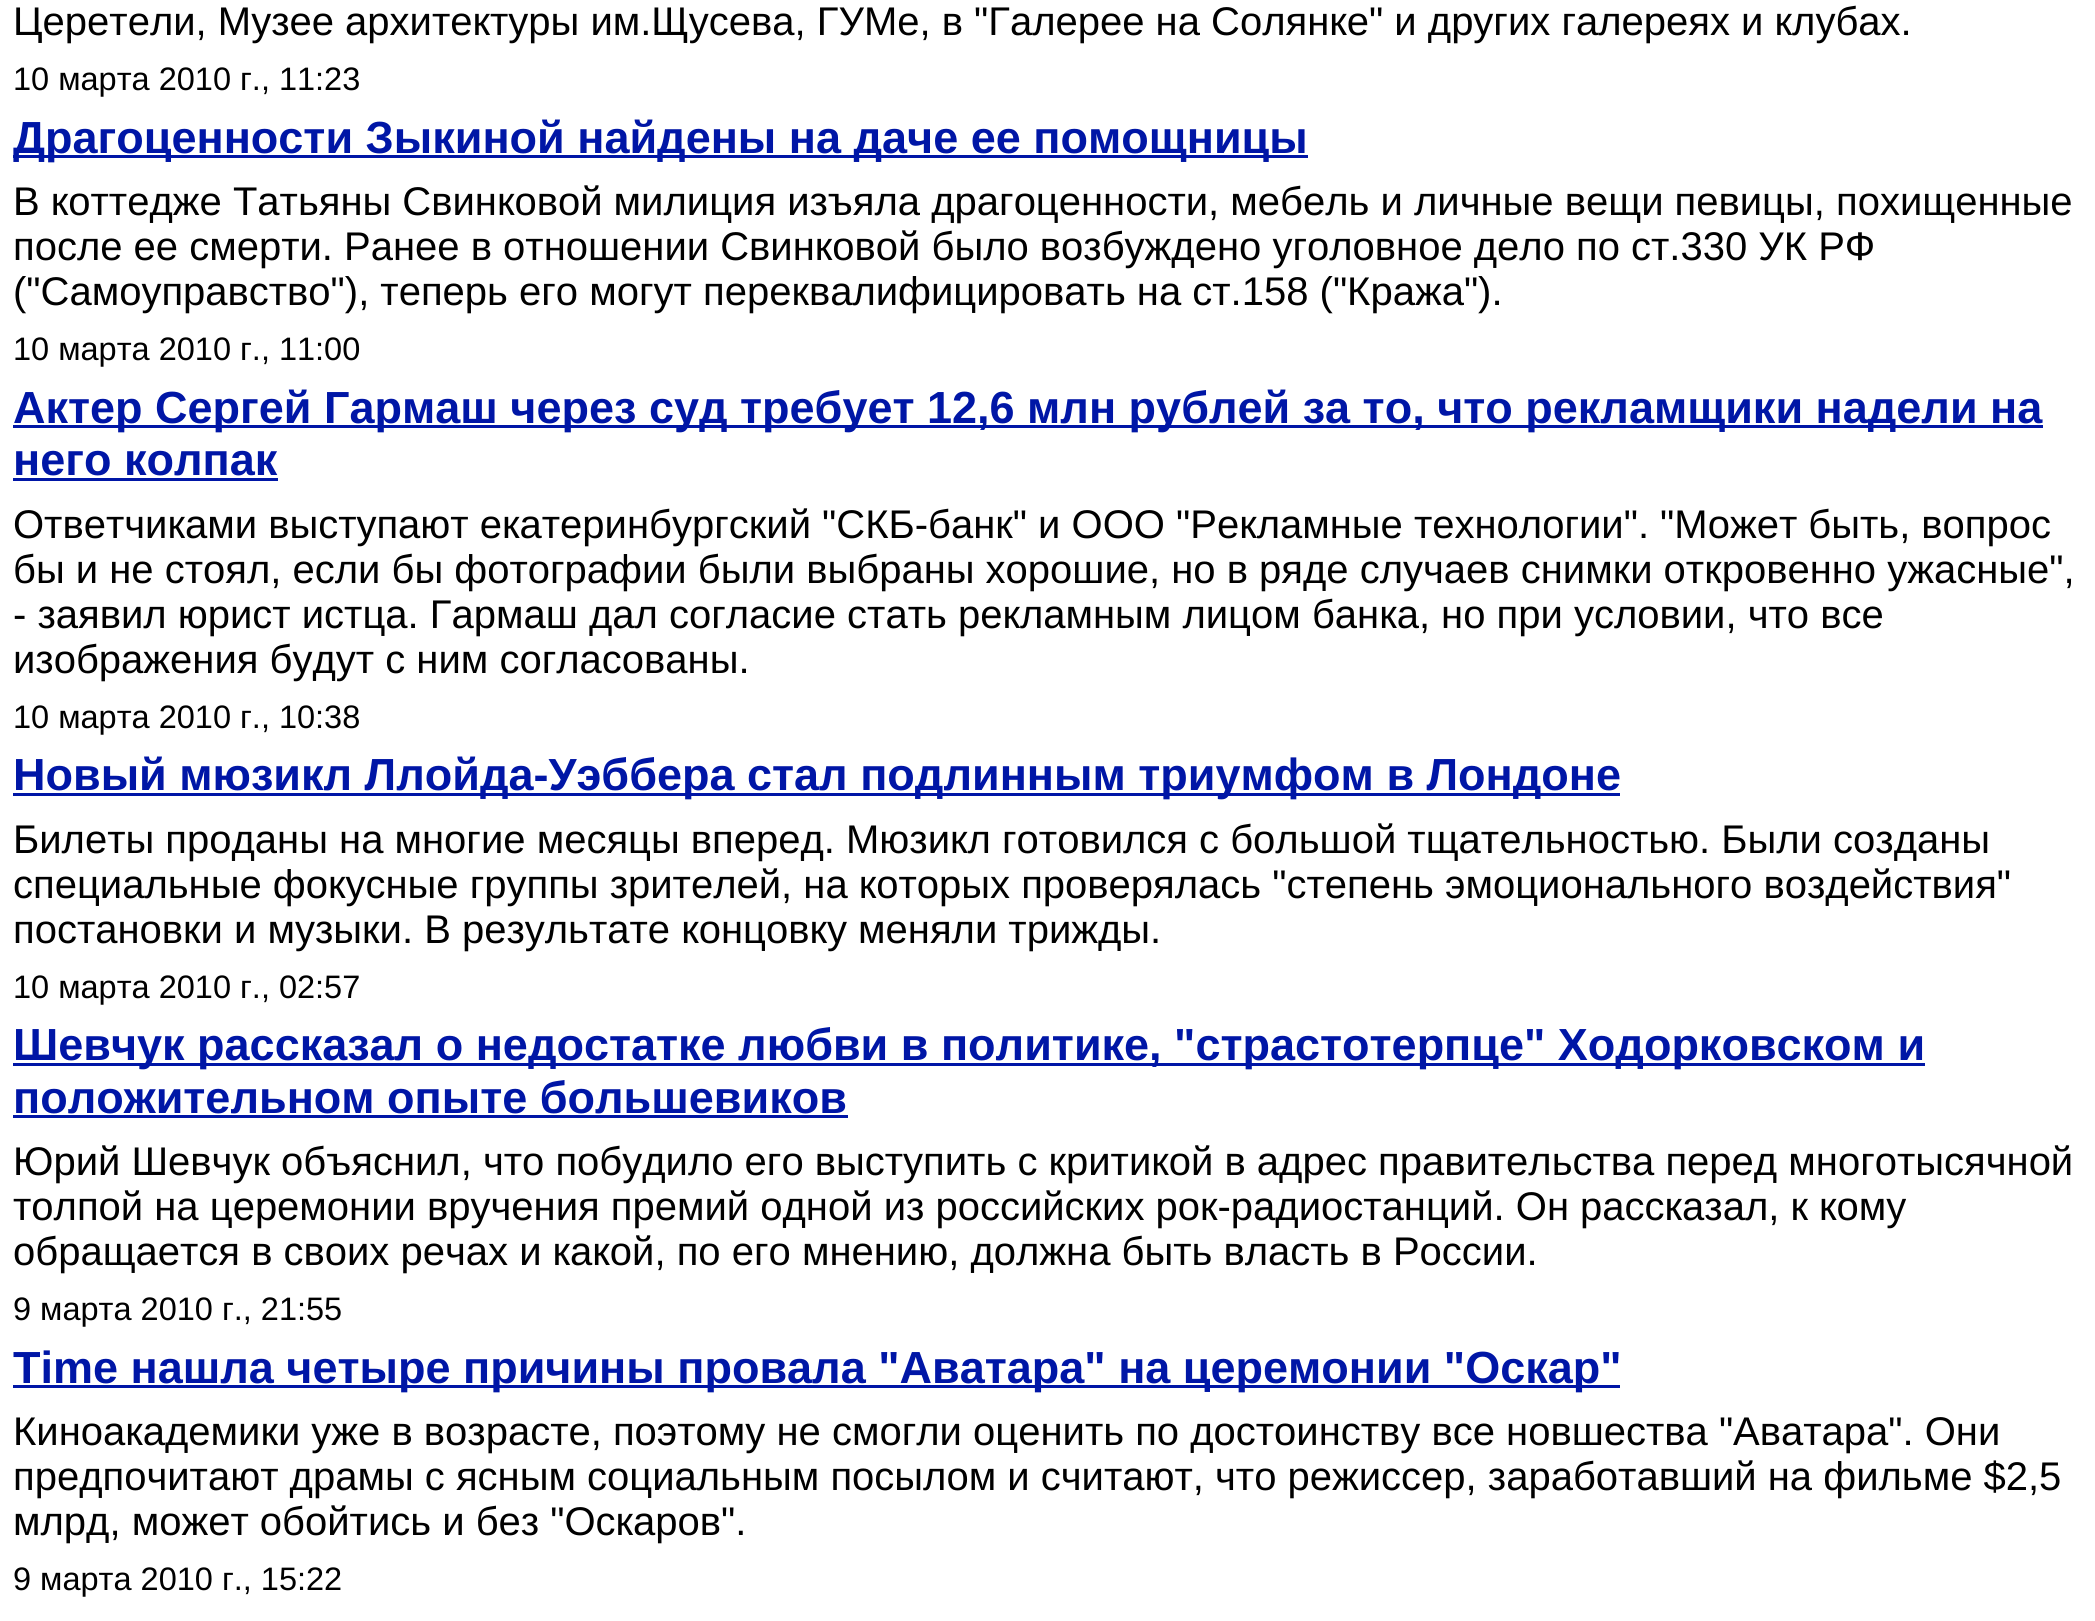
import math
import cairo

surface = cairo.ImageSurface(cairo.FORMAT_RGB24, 2095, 1621)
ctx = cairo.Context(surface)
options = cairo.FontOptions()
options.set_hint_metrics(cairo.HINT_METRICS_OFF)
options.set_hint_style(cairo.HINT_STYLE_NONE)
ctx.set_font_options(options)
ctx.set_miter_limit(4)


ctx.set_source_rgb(1, 1, 1)
ctx.paint()
ctx.select_font_face("Liberation Sans")
ctx.set_font_size(40)
ctx.set_source_rgb(0, 0, 0)
ctx.move_to(13, 35)
ctx.show_text("Церетели, Музее архитектуры им.Щусева, ГУМе, в \"Галерее на Солянке\" и других галереях и клубах.")
ctx.set_font_size(32.5)
ctx.move_to(13, 90)
ctx.show_text("10 марта 2010 г., 11:23")
ctx.set_source_rgb(0, 0.086, 0.651)
ctx.rectangle(13, 155, 1295, 3)
ctx.fill()
ctx.select_font_face("Liberation Sans", cairo.FONT_SLANT_NORMAL, cairo.FONT_WEIGHT_BOLD)
ctx.set_font_size(45)
ctx.move_to(13, 153)
ctx.show_text("Драгоценности Зыкиной найдены на даче ее помощницы")
ctx.select_font_face("Liberation Sans")
ctx.set_font_size(40)
ctx.set_source_rgb(0, 0, 0)
ctx.move_to(13, 215)
ctx.show_text("В коттедже Татьяны Свинковой милиция изъяла драгоценности, мебель и личные вещи певицы, похищенные")
ctx.move_to(13, 260)
ctx.show_text("после ее смерти. Ранее в отношении Свинковой было возбуждено уголовное дело по ст.330 УК РФ")
ctx.move_to(13, 305)
ctx.show_text("(\"Самоуправство\"), теперь его могут переквалифицировать на ст.158 (\"Кража\").")
ctx.set_font_size(32.5)
ctx.move_to(13, 360)
ctx.show_text("10 марта 2010 г., 11:00")
ctx.set_source_rgb(0, 0.086, 0.651)
ctx.rectangle(13, 425, 2030, 3)
ctx.fill()
ctx.select_font_face("Liberation Sans", cairo.FONT_SLANT_NORMAL, cairo.FONT_WEIGHT_BOLD)
ctx.set_font_size(45)
ctx.move_to(13, 423)
ctx.show_text("Актер Сергей Гармаш через суд требует 12,6 млн рублей за то, что рекламщики надели на")
ctx.move_to(13, 475)
ctx.show_text("него колпак")
ctx.rectangle(13, 478, 265, 3)
ctx.fill()
ctx.select_font_face("Liberation Sans")
ctx.set_font_size(40)
ctx.set_source_rgb(0, 0, 0)
ctx.move_to(13, 538)
ctx.show_text("Ответчиками выступают екатеринбургский \"СКБ-банк\" и ООО \"Рекламные технологии\". \"Может быть, вопрос")
ctx.move_to(13, 583)
ctx.show_text("бы и не стоял, если бы фотографии были выбраны хорошие, но в ряде случаев снимки откровенно ужасные\",")
ctx.move_to(13, 628)
ctx.show_text("- заявил юрист истца. Гармаш дал согласие стать рекламным лицом банка, но при условии, что все")
ctx.move_to(13, 673)
ctx.show_text("изображения будут с ним согласованы.")
ctx.set_font_size(32.5)
ctx.move_to(13, 728)
ctx.show_text("10 марта 2010 г., 10:38")
ctx.set_source_rgb(0, 0.086, 0.651)
ctx.rectangle(13, 793, 1607, 3)
ctx.fill()
ctx.select_font_face("Liberation Sans", cairo.FONT_SLANT_NORMAL, cairo.FONT_WEIGHT_BOLD)
ctx.set_font_size(45)
ctx.move_to(13, 790)
ctx.show_text("Новый мюзикл Ллойда-Уэббера стал подлинным триумфом в Лондоне")
ctx.select_font_face("Liberation Sans")
ctx.set_font_size(40)
ctx.set_source_rgb(0, 0, 0)
ctx.move_to(13, 853)
ctx.show_text("Билеты проданы на многие месяцы вперед. Мюзикл готовился с большой тщательностью. Были созданы")
ctx.move_to(13, 898)
ctx.show_text("специальные фокусные группы зрителей, на которых проверялась \"степень эмоционального воздействия\"")
ctx.move_to(13, 943)
ctx.show_text("постановки и музыки. В результате концовку меняли трижды.")
ctx.set_font_size(32.5)
ctx.move_to(13, 998)
ctx.show_text("10 марта 2010 г., 02:57")
ctx.set_source_rgb(0, 0.086, 0.651)
ctx.rectangle(13, 1063, 1912, 3)
ctx.fill()
ctx.select_font_face("Liberation Sans", cairo.FONT_SLANT_NORMAL, cairo.FONT_WEIGHT_BOLD)
ctx.set_font_size(45)
ctx.move_to(13, 1060)
ctx.show_text("Шевчук рассказал о недостатке любви в политике, \"страстотерпце\" Ходорковском и")
ctx.move_to(13, 1113)
ctx.show_text("положительном опыте большевиков")
ctx.rectangle(13, 1115, 835, 3)
ctx.fill()
ctx.select_font_face("Liberation Sans")
ctx.set_font_size(40)
ctx.set_source_rgb(0, 0, 0)
ctx.move_to(13, 1175)
ctx.show_text("Юрий Шевчук объяснил, что побудило его выступить с критикой в адрес правительства перед многотысячной")
ctx.move_to(13, 1220)
ctx.show_text("толпой на церемонии вручения премий одной из российских рок-радиостанций. Он рассказал, к кому")
ctx.move_to(13, 1265)
ctx.show_text("обращается в своих речах и какой, по его мнению, должна быть власть в России.")
ctx.set_font_size(32.5)
ctx.move_to(13, 1320)
ctx.show_text("9 марта 2010 г., 21:55")
ctx.set_source_rgb(0, 0.086, 0.651)
ctx.rectangle(13, 1385, 1607, 3)
ctx.fill()
ctx.select_font_face("Liberation Sans", cairo.FONT_SLANT_NORMAL, cairo.FONT_WEIGHT_BOLD)
ctx.set_font_size(45)
ctx.move_to(13, 1383)
ctx.show_text("Time нашла четыре причины провала \"Аватара\" на церемонии \"Оскар\"")
ctx.select_font_face("Liberation Sans")
ctx.set_font_size(40)
ctx.set_source_rgb(0, 0, 0)
ctx.move_to(13, 1445)
ctx.show_text("Киноакадемики уже в возрасте, поэтому не смогли оценить по достоинству все новшества \"Аватара\". Они")
ctx.move_to(13, 1490)
ctx.show_text("предпочитают драмы с ясным социальным посылом и считают, что режиссер, заработавший на фильме $2,5")
ctx.move_to(13, 1535)
ctx.show_text("млрд, может обойтись и без \"Оскаров\".")
ctx.set_font_size(32.5)
ctx.move_to(13, 1590)
ctx.show_text("9 марта 2010 г., 15:22")
surface.write_to_png("page.png")
